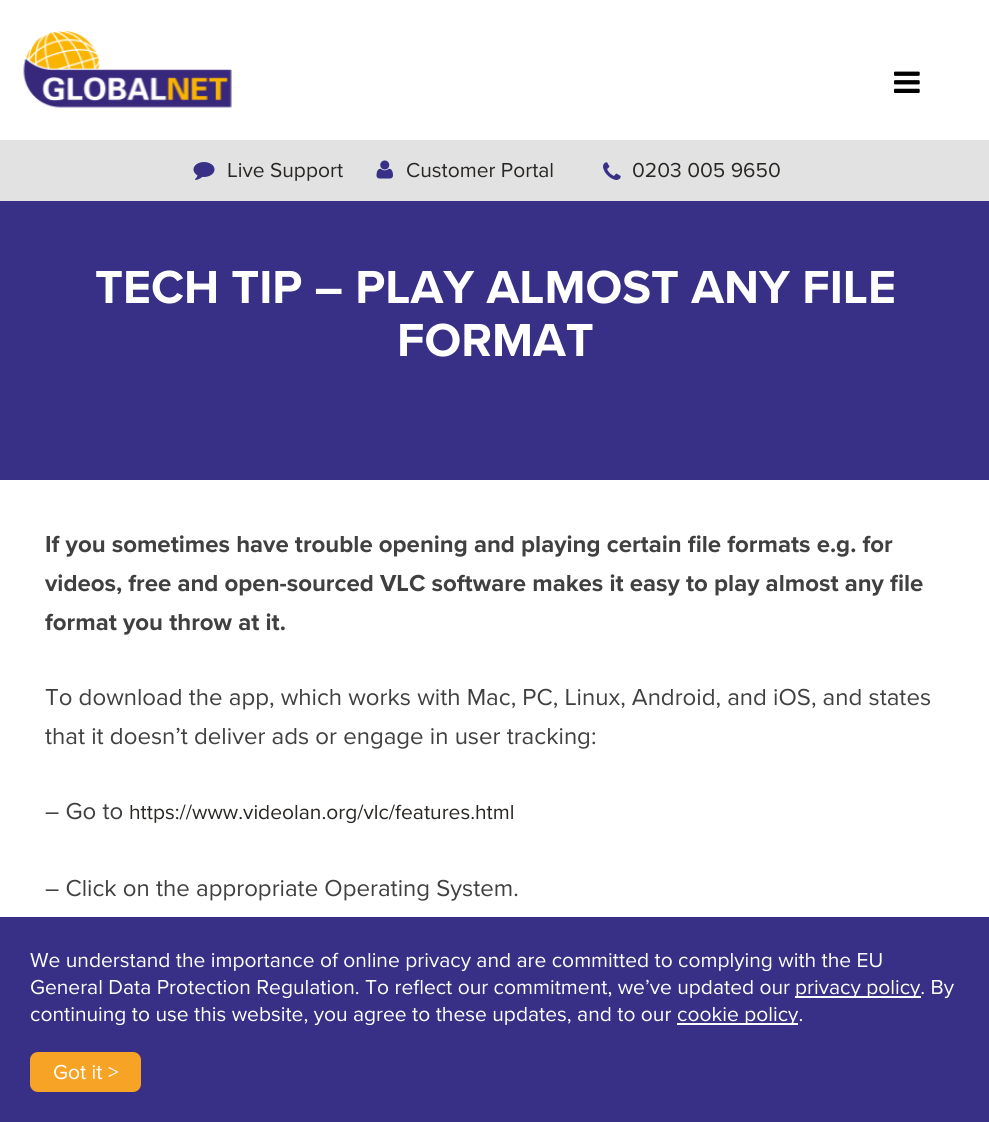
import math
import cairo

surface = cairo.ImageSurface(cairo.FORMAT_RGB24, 989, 1122)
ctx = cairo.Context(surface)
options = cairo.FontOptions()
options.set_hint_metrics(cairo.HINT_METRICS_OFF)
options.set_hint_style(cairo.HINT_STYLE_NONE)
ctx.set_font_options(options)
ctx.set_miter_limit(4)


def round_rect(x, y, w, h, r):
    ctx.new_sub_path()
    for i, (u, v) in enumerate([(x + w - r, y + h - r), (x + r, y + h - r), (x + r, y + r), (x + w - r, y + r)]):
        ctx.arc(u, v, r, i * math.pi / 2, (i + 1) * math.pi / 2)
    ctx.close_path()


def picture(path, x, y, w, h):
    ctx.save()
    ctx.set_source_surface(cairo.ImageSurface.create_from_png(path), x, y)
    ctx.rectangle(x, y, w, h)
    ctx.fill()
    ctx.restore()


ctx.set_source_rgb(1, 1, 1)
ctx.paint()
picture("img1.png", 23, 31, 209, 77)
picture("img2.png", 894, 71, 26, 22)
ctx.set_source_rgb(0.886, 0.886, 0.886)
ctx.rectangle(0, 140, 989, 61)
ctx.fill()
picture("img3.png", 193, 162, 22, 18)
ctx.select_font_face("Proxima Nova")
ctx.set_font_size(21)
ctx.set_source_rgb(0.161, 0.153, 0.141)
ctx.move_to(227, 177)
ctx.show_text("Live Support")
picture("img4.png", 376, 160, 17, 19)
ctx.move_to(406, 177)
ctx.show_text("Customer Portal")
picture("img5.png", 603, 162, 18, 18)
ctx.move_to(632, 177)
ctx.show_text("0203 005 9650")
ctx.set_source_rgb(0.216, 0.188, 0.525)
ctx.rectangle(0, 201, 989, 279)
ctx.fill()
ctx.select_font_face("Proxima Nova", cairo.FONT_SLANT_NORMAL, cairo.FONT_WEIGHT_BOLD)
ctx.set_font_size(48)
ctx.set_source_rgb(1, 1, 1)
ctx.move_to(95, 303)
ctx.show_text("TECH TIP – PLAY ALMOST ANY FILE")
ctx.move_to(397, 356)
ctx.show_text("FORMAT")
ctx.set_font_size(24)
ctx.set_source_rgb(0.251, 0.251, 0.251)
ctx.move_to(45, 552)
ctx.show_text("If you sometimes have trouble opening and playing certain file formats e.g. for")
ctx.move_to(45, 591)
ctx.show_text("videos, free and open-sourced VLC software makes it easy to play almost any file")
ctx.move_to(45, 630)
ctx.show_text("format you throw at it.")
ctx.select_font_face("Proxima Nova")
ctx.move_to(45, 705)
ctx.show_text("To download the app, which works with Mac, PC, Linux, Android, and iOS, and states")
ctx.move_to(45, 744)
ctx.show_text("that it doesn’t deliver ads or engage in user tracking:")
ctx.move_to(45, 819)
ctx.show_text("– Go to")
ctx.set_font_size(21)
ctx.set_source_rgb(0.161, 0.153, 0.141)
ctx.move_to(129, 819)
ctx.show_text("https://www.videolan.org/vlc/features.html")
ctx.set_font_size(24)
ctx.set_source_rgb(0.251, 0.251, 0.251)
ctx.move_to(45, 896)
ctx.show_text("– Click on the appropriate Operating System.")
ctx.set_source_rgb(0.216, 0.188, 0.525)
ctx.rectangle(0, 917, 989, 205)
ctx.fill()
ctx.set_font_size(21)
ctx.set_source_rgb(1, 1, 1)
ctx.move_to(30, 967)
ctx.show_text("We understand the importance of online privacy and are committed to complying with the EU")
ctx.move_to(30, 994)
ctx.show_text("General Data Protection Regulation. To reflect our commitment, we’ve updated our")
ctx.rectangle(795, 996, 126, 2)
ctx.fill()
ctx.move_to(795, 994)
ctx.show_text("privacy policy. By")
ctx.move_to(30, 1021)
ctx.show_text("continuing to use this website, you agree to these updates, and to our")
ctx.rectangle(677, 1023, 121, 2)
ctx.fill()
ctx.move_to(677, 1021)
ctx.show_text("cookie policy.")
ctx.set_source_rgb(0.965, 0.639, 0.149)
round_rect(30, 1052, 111, 40, 8)
ctx.fill()
ctx.set_source_rgb(1, 1, 1)
ctx.move_to(53, 1079)
ctx.show_text("Got it >")
surface.write_to_png("page.png")
